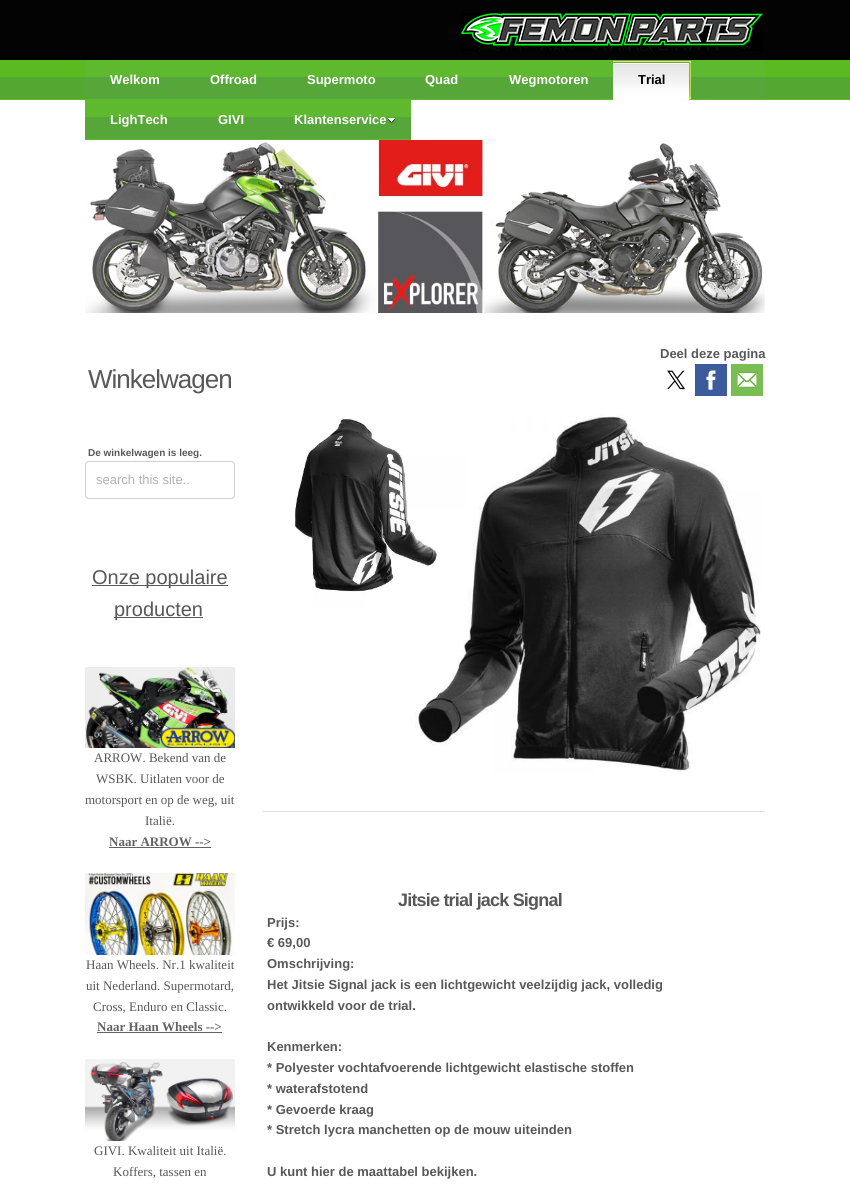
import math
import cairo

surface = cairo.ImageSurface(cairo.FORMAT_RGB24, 850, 1186)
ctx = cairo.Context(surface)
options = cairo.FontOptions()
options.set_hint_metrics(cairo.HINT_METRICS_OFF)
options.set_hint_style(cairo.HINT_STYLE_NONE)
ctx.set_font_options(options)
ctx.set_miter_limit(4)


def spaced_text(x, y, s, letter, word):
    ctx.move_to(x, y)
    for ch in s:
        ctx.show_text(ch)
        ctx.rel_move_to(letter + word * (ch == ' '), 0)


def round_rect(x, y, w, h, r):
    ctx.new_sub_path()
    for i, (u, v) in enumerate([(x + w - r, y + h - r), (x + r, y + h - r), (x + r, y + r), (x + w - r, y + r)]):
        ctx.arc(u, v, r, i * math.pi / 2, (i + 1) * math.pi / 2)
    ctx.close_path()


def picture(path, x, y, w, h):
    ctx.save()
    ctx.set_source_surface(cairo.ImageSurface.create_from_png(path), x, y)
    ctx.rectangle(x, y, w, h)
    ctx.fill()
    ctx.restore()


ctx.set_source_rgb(1, 1, 1)
ctx.paint()
picture("img1.png", 0, 0, 850, 100)
picture("img2.png", 461, 13, 302, 38)
picture("img3.png", 85, 60, 680, 40)
ctx.select_font_face("Liberation Sans", cairo.FONT_SLANT_NORMAL, cairo.FONT_WEIGHT_BOLD)
ctx.set_font_size(13)
ctx.set_source_rgb(1, 1, 1)
ctx.move_to(110, 84)
ctx.show_text("Welkom")
ctx.move_to(210, 84)
ctx.show_text("Offroad")
ctx.move_to(307, 84)
ctx.show_text("Supermoto")
ctx.move_to(425, 84)
ctx.show_text("Quad")
ctx.move_to(509, 84)
ctx.show_text("Wegmotoren")
picture("img4.png", 613, 61, 78, 39)
ctx.set_source_rgb(0, 0, 0)
ctx.move_to(638, 84)
ctx.show_text("Trial")
picture("img5.png", 85, 100, 108, 40)
ctx.set_source_rgb(1, 1, 1)
ctx.move_to(110, 124)
ctx.show_text("LighTech")
picture("img6.png", 193, 100, 76, 40)
ctx.move_to(218, 124)
ctx.show_text("GIVI")
picture("img7.png", 269, 100, 142, 40)
ctx.move_to(294, 124)
ctx.show_text("Klantenservice")
picture("img8.png", 388, 118, 8, 6)
picture("img9.png", 85, 140, 680, 173)
ctx.select_font_face("Liberation Sans")
ctx.set_font_size(26)
ctx.set_source_rgb(0.345, 0.345, 0.345)
spaced_text(88, 388, "Winkelwagen", -1, 0)
ctx.select_font_face("Liberation Sans", cairo.FONT_SLANT_NORMAL, cairo.FONT_WEIGHT_BOLD)
ctx.set_font_size(10)
ctx.move_to(88, 456)
ctx.show_text("De winkelwagen is leeg.")
round_rect(85.5, 461.5, 149, 37, 3.5)
ctx.set_source_rgb(0.82, 0.82, 0.82)
ctx.set_line_width(1)
ctx.stroke()
ctx.select_font_face("Liberation Sans")
ctx.set_font_size(13)
ctx.set_source_rgb(0.702, 0.702, 0.702)
ctx.move_to(96, 484)
ctx.show_text("search this site..")
ctx.set_source_rgb(0.345, 0.345, 0.345)
ctx.rectangle(92, 585, 136, 1)
ctx.fill()
ctx.set_font_size(20)
ctx.move_to(92, 584)
ctx.show_text("Onze populaire")
ctx.rectangle(114, 617, 89, 1)
ctx.fill()
ctx.move_to(114, 616)
ctx.show_text("producten")
picture("img10.png", 85, 667, 150, 81)
ctx.select_font_face("Liberation Serif")
ctx.set_font_size(13)
ctx.move_to(94, 762)
ctx.show_text("ARROW. Bekend van de")
ctx.move_to(96, 783)
ctx.show_text("WSBK. Uitlaten voor de")
ctx.move_to(85, 804)
ctx.show_text("motorsport en op de weg, uit")
ctx.move_to(145, 825)
ctx.show_text("Italië.")
ctx.select_font_face("Liberation Serif", cairo.FONT_SLANT_NORMAL, cairo.FONT_WEIGHT_BOLD)
ctx.set_source_rgb(0.384, 0.384, 0.384)
ctx.move_to(109, 846)
ctx.show_text("Naar ARROW -->")
ctx.rectangle(109, 847, 102, 1)
ctx.fill()
picture("img11.png", 85, 873, 150, 82)
ctx.select_font_face("Liberation Serif")
ctx.set_source_rgb(0.345, 0.345, 0.345)
ctx.move_to(86, 969)
ctx.show_text("Haan Wheels. Nr.1 kwaliteit")
ctx.move_to(86, 990)
ctx.show_text("uit Nederland. Supermotard,")
ctx.move_to(93, 1011)
ctx.show_text("Cross, Enduro en Classic.")
ctx.select_font_face("Liberation Serif", cairo.FONT_SLANT_NORMAL, cairo.FONT_WEIGHT_BOLD)
ctx.set_source_rgb(0.384, 0.384, 0.384)
ctx.move_to(97, 1031)
ctx.show_text("Naar Haan Wheels -->")
ctx.rectangle(97, 1032, 125, 1)
ctx.fill()
picture("img12.png", 85, 1059, 150, 82)
ctx.select_font_face("Liberation Serif")
ctx.set_source_rgb(0.345, 0.345, 0.345)
ctx.move_to(94, 1155)
ctx.show_text("GIVI. Kwaliteit uit Italië.")
ctx.move_to(113, 1176)
ctx.show_text("Koffers, tassen en")
ctx.select_font_face("Liberation Sans", cairo.FONT_SLANT_NORMAL, cairo.FONT_WEIGHT_BOLD)
ctx.move_to(660, 358)
ctx.show_text("Deel deze pagina")
picture("img13.png", 667, 370, 18, 20)
picture("img14.png", 695, 364, 32, 32)
picture("img15.png", 731, 364, 32, 32)
picture("img16.png", 294, 415, 467, 358)
ctx.set_source_rgb(0.882, 0.882, 0.882)
ctx.rectangle(262, 811, 503, 1)
ctx.fill()
ctx.set_font_size(18)
ctx.set_source_rgb(0.345, 0.345, 0.345)
spaced_text(398, 906, "Jitsie trial jack Signal", -0.8, 0)
ctx.set_font_size(13)
ctx.move_to(267, 927)
ctx.show_text("Prijs:")
ctx.move_to(267, 947)
ctx.show_text("€ 69,00")
ctx.move_to(267, 968)
ctx.show_text("Omschrijving:")
ctx.move_to(267, 989)
ctx.show_text("Het Jitsie Signal jack is een lichtgewicht veelzijdig jack, volledig")
ctx.move_to(267, 1010)
ctx.show_text("ontwikkeld voor de trial.")
ctx.move_to(267, 1051)
ctx.show_text("Kenmerken:")
ctx.move_to(267, 1072)
ctx.show_text("* Polyester vochtafvoerende lichtgewicht elastische stoffen")
ctx.move_to(267, 1093)
ctx.show_text("* waterafstotend")
ctx.move_to(267, 1114)
ctx.show_text("* Gevoerde kraag")
ctx.move_to(267, 1134)
ctx.show_text("* Stretch lycra manchetten op de mouw uiteinden")
ctx.move_to(267, 1176)
ctx.show_text("U kunt hier de maattabel bekijken.")
surface.write_to_png("page.png")
